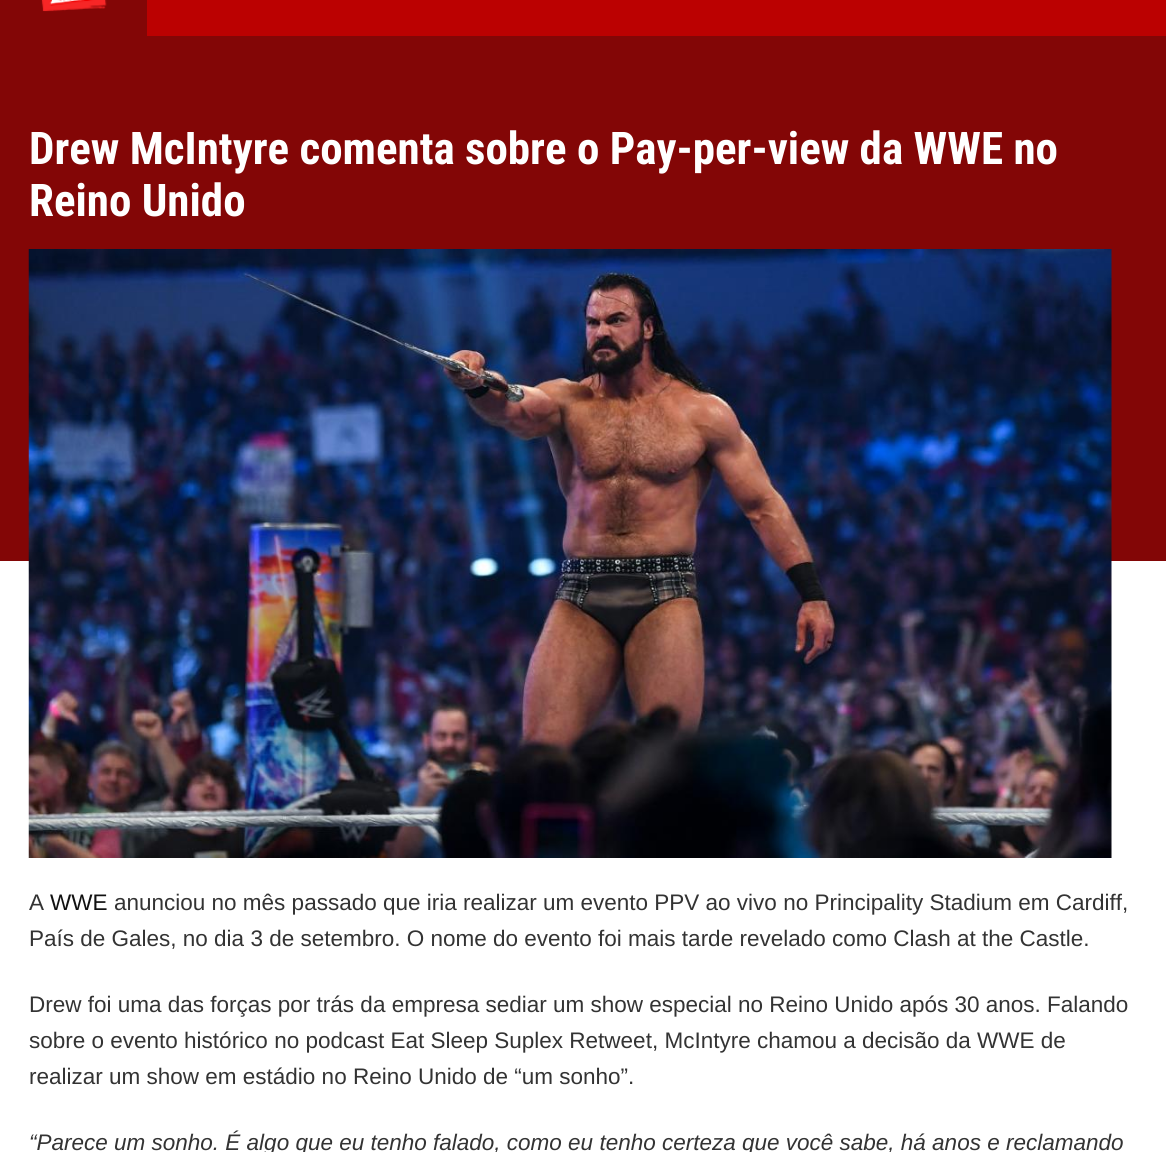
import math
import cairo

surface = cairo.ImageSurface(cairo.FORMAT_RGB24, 1166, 1152)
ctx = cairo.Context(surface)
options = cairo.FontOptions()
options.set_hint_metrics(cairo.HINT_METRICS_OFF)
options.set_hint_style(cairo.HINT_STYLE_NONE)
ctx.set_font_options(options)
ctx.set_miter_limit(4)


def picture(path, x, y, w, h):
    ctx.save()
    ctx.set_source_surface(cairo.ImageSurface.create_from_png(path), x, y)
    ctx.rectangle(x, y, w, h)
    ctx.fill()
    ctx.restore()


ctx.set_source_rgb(1, 1, 1)
ctx.paint()
ctx.set_source_rgb(0.733, 0.004, 0.004)
ctx.rectangle(147, 0, 1019, 36)
ctx.fill()
ctx.set_source_rgb(0.514, 0.027, 0.027)
ctx.rectangle(0, 0, 147, 36)
ctx.fill()
picture("img1.png", 41, 0, 66, 12)
ctx.rectangle(0, 36, 1166, 525)
ctx.fill()
ctx.select_font_face("Roboto Condensed", cairo.FONT_SLANT_NORMAL, cairo.FONT_WEIGHT_BOLD)
ctx.set_font_size(45)
ctx.set_source_rgb(1, 1, 1)
ctx.move_to(29, 164)
ctx.show_text("Drew McIntyre comenta sobre o Pay-per-view da WWE no")
ctx.move_to(29, 216)
ctx.show_text("Reino Unido")
picture("img2.png", 28, 249, 1084, 609)
ctx.select_font_face("Liberation Sans")
ctx.set_font_size(22.5)
ctx.set_source_rgb(0.2, 0.2, 0.2)
ctx.move_to(29, 910)
ctx.show_text("A")
ctx.set_source_rgb(0.067, 0.067, 0.067)
ctx.move_to(50, 910)
ctx.show_text("WWE")
ctx.set_source_rgb(0.2, 0.2, 0.2)
ctx.move_to(114, 910)
ctx.show_text("anunciou no mês passado que iria realizar um evento PPV ao vivo no Principality Stadium em Cardiff,")
ctx.move_to(29, 946)
ctx.show_text("País de Gales, no dia 3 de setembro. O nome do evento foi mais tarde revelado como Clash at the Castle.")
ctx.move_to(29, 1012)
ctx.show_text("Drew foi uma das forças por trás da empresa sediar um show especial no Reino Unido após 30 anos. Falando")
ctx.move_to(29, 1048)
ctx.show_text("sobre o evento histórico no podcast Eat Sleep Suplex Retweet, McIntyre chamou a decisão da WWE de")
ctx.move_to(29, 1084)
ctx.show_text("realizar um show em estádio no Reino Unido de “um sonho”.")
ctx.select_font_face("Liberation Sans", cairo.FONT_SLANT_ITALIC)
ctx.move_to(29, 1150)
ctx.show_text("“Parece um sonho. É algo que eu tenho falado, como eu tenho certeza que você sabe, há anos e reclamando")
surface.write_to_png("page.png")
